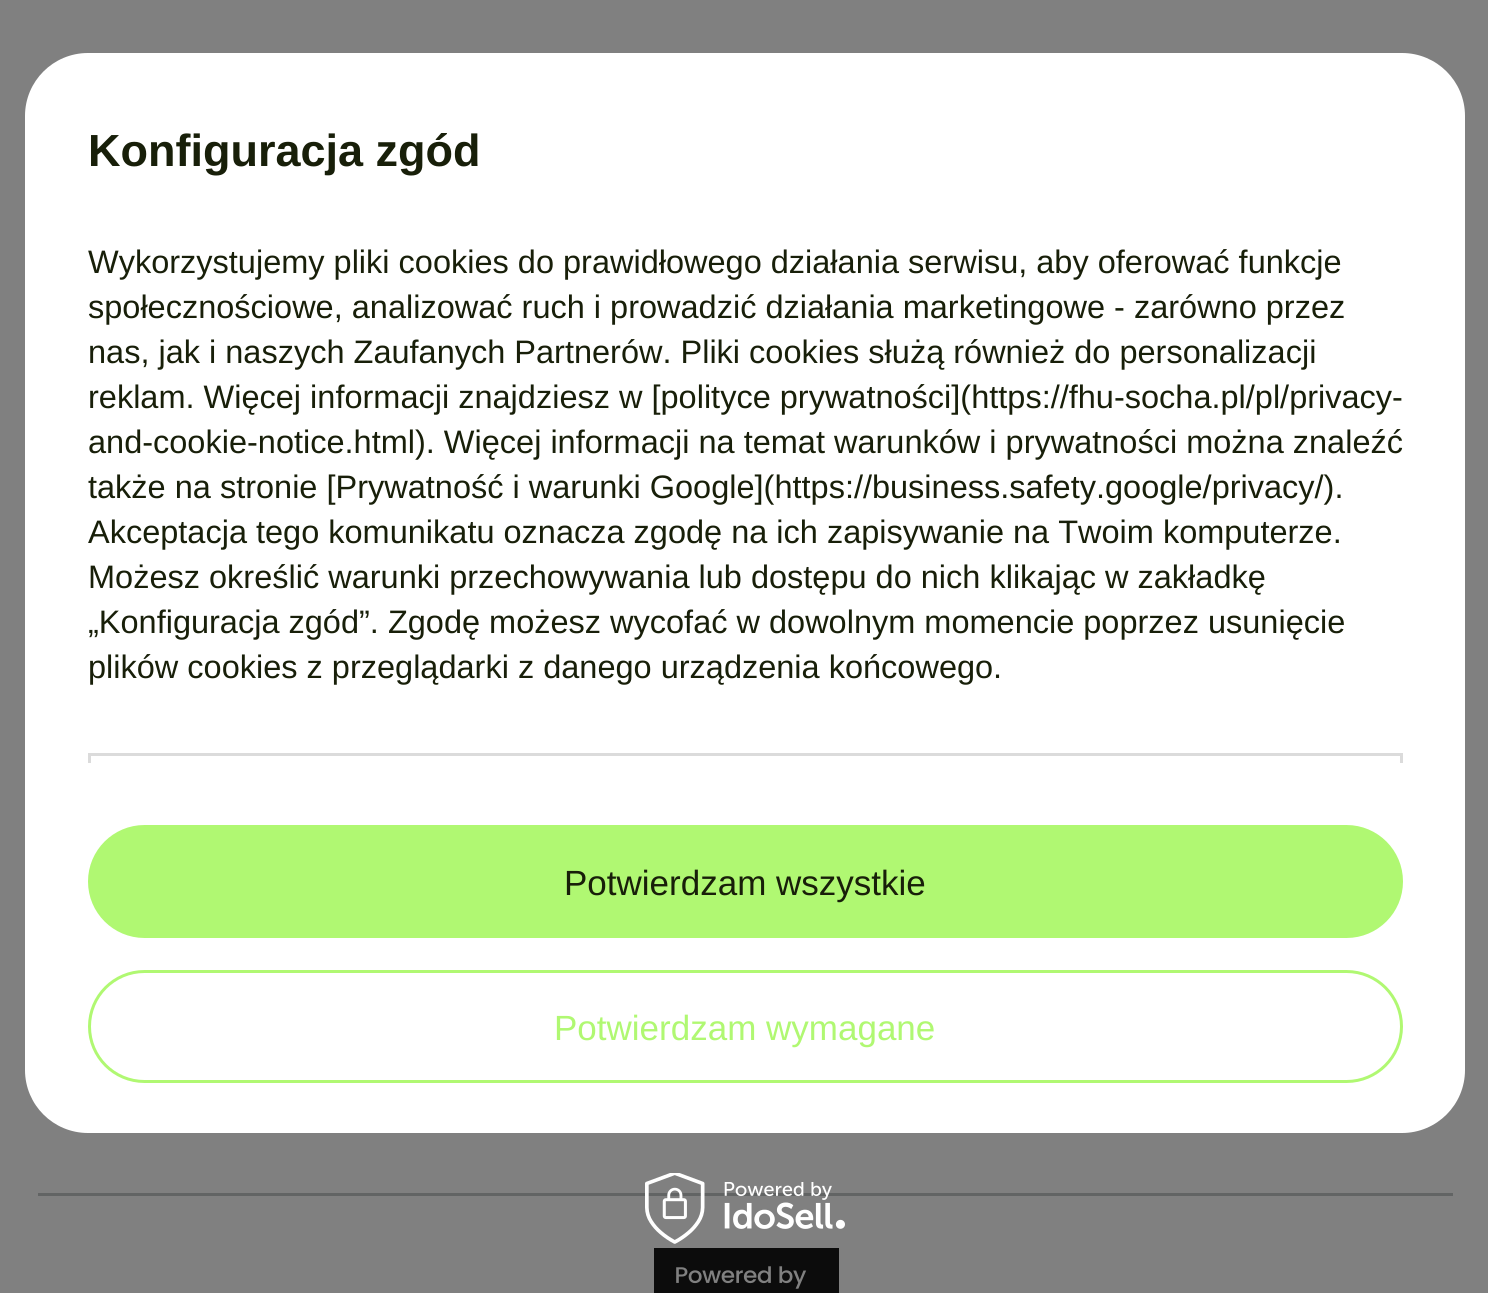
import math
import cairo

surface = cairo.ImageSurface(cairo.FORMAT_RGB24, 1488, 1293)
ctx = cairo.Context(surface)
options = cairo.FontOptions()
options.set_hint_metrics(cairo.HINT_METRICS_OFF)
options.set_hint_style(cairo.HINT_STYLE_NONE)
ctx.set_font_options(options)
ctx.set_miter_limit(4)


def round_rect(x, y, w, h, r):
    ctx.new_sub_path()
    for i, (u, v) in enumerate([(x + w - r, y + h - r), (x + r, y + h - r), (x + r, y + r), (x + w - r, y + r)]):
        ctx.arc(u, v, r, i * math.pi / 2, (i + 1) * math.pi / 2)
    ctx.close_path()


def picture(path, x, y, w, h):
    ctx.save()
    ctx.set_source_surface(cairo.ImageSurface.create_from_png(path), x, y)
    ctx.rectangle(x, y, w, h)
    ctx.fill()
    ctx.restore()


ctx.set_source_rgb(0.502, 0.502, 0.502)
ctx.paint()
ctx.set_source_rgb(1, 1, 1)
round_rect(25, 53, 1440, 1080, 63)
ctx.fill()
ctx.select_font_face("Liberation Sans", cairo.FONT_SLANT_NORMAL, cairo.FONT_WEIGHT_BOLD)
ctx.set_font_size(45)
ctx.set_source_rgb(0.094, 0.122, 0.039)
ctx.move_to(88, 166)
ctx.show_text("Konfiguracja zgód")
ctx.select_font_face("Liberation Sans")
ctx.set_font_size(32.5)
ctx.move_to(88, 273)
ctx.show_text("Wykorzystujemy pliki cookies do prawidłowego działania serwisu, aby oferować funkcje")
ctx.move_to(88, 318)
ctx.show_text("społecznościowe, analizować ruch i prowadzić działania marketingowe - zarówno przez")
ctx.move_to(88, 363)
ctx.show_text("nas, jak i naszych Zaufanych Partnerów. Pliki cookies służą również do personalizacji")
ctx.move_to(88, 408)
ctx.show_text("reklam. Więcej informacji znajdziesz w [polityce prywatności](https://fhu-socha.pl/pl/privacy-")
ctx.move_to(88, 453)
ctx.show_text("and-cookie-notice.html). Więcej informacji na temat warunków i prywatności można znaleźć")
ctx.move_to(88, 498)
ctx.show_text("także na stronie [Prywatność i warunki Google](https://business.safety.google/privacy/).")
ctx.move_to(88, 543)
ctx.show_text("Akceptacja tego komunikatu oznacza zgodę na ich zapisywanie na Twoim komputerze.")
ctx.move_to(88, 588)
ctx.show_text("Możesz określić warunki przechowywania lub dostępu do nich klikając w zakładkę")
ctx.move_to(88, 633)
ctx.show_text("„Konfiguracja zgód”. Zgodę możesz wycofać w dowolnym momencie poprzez usunięcie")
ctx.move_to(88, 678)
ctx.show_text("plików cookies z przeglądarki z danego urządzenia końcowego.")
ctx.set_source_rgb(0.859, 0.859, 0.859)
ctx.rectangle(88, 753, 1315, 3)
ctx.fill()
ctx.rectangle(1400, 753, 3, 10)
ctx.fill()
ctx.rectangle(88, 753, 3, 10)
ctx.fill()
ctx.set_source_rgb(0.69, 0.969, 0.447)
round_rect(89.5, 826.5, 1312, 110, 55)
ctx.fill_preserve()
ctx.set_line_width(3)
ctx.stroke()
ctx.set_font_size(35)
ctx.set_source_rgb(0.094, 0.122, 0.039)
ctx.move_to(564, 895)
ctx.show_text("Potwierdzam wszystkie")
round_rect(89.5, 971.5, 1312, 110, 55)
ctx.set_source_rgb(0.69, 0.969, 0.447)
ctx.stroke()
ctx.move_to(554, 1040)
ctx.show_text("Potwierdzam wymagane")
ctx.set_source_rgb(0.384, 0.392, 0.392)
ctx.rectangle(38, 1193, 1415, 3)
ctx.fill()
picture("img1.png", 645, 1173, 200, 71)
picture("img2.png", 654, 1248, 185, 45)
surface.write_to_png("page.png")
